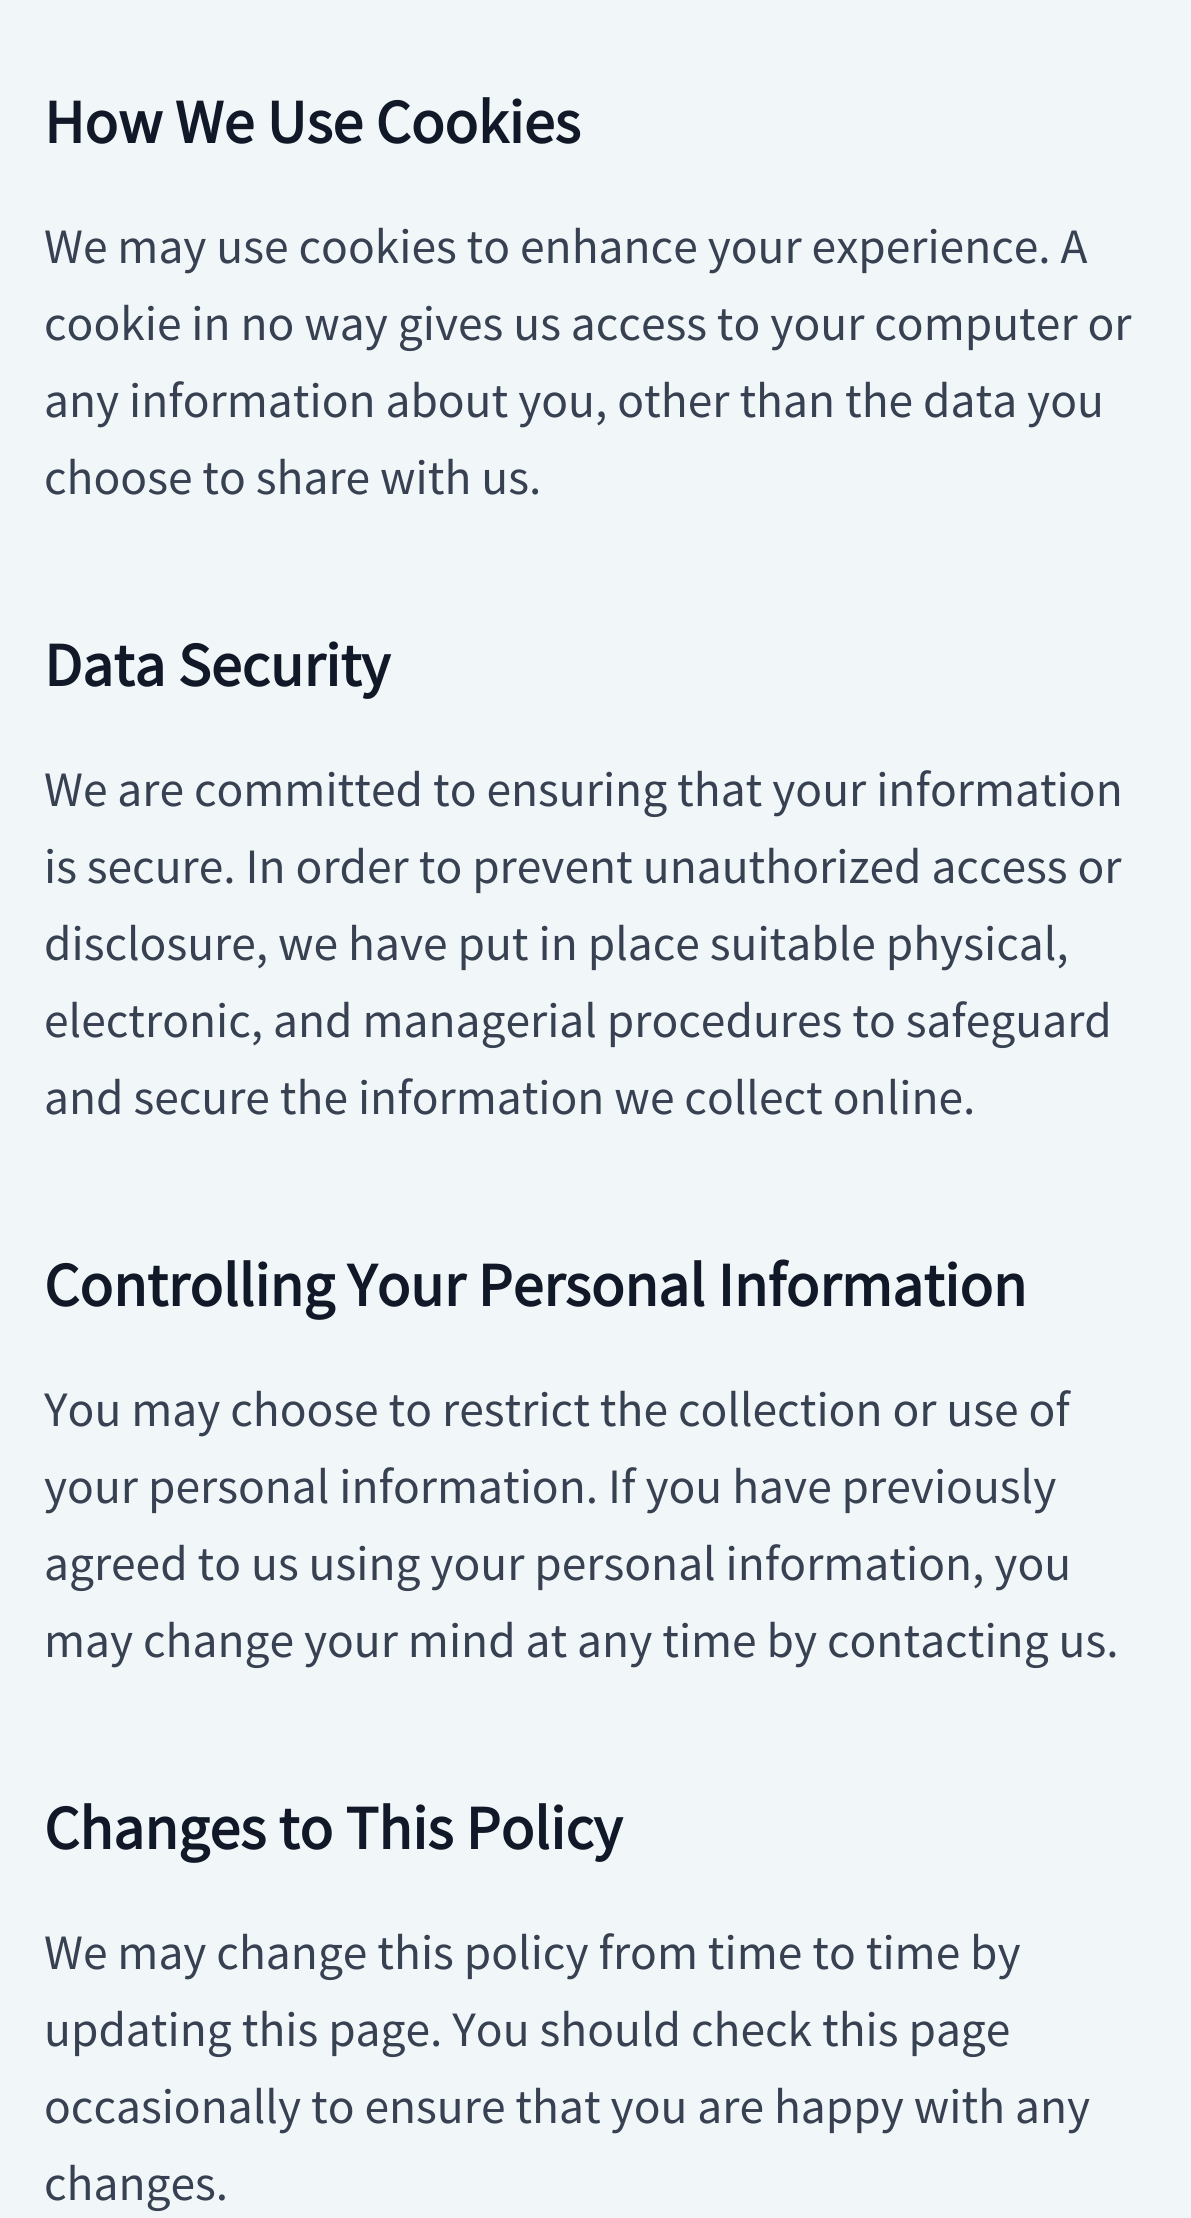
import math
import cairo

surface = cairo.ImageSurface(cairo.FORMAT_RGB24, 1191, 2218)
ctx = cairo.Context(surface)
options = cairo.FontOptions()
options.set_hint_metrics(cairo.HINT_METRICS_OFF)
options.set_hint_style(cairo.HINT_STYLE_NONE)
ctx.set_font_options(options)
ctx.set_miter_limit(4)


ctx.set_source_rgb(0.945, 0.961, 0.976)
ctx.paint()
ctx.select_font_face("Source Sans Pro", cairo.FONT_SLANT_NORMAL, cairo.FONT_WEIGHT_BOLD)
ctx.set_font_size(61.9)
ctx.set_source_rgb(0.067, 0.094, 0.153)
ctx.move_to(44, 143)
ctx.show_text("How We Use Cookies")
ctx.select_font_face("Source Sans Pro")
ctx.set_font_size(49.5)
ctx.set_source_rgb(0.216, 0.255, 0.318)
ctx.move_to(44, 263)
ctx.show_text("We may use cookies to enhance your experience. A")
ctx.move_to(44, 340)
ctx.show_text("cookie in no way gives us access to your computer or")
ctx.move_to(44, 417)
ctx.show_text("any information about you, other than the data you")
ctx.move_to(44, 494)
ctx.show_text("choose to share with us.")
ctx.select_font_face("Source Sans Pro", cairo.FONT_SLANT_NORMAL, cairo.FONT_WEIGHT_BOLD)
ctx.set_font_size(61.9)
ctx.set_source_rgb(0.067, 0.094, 0.153)
ctx.move_to(44, 686)
ctx.show_text("Data Security")
ctx.select_font_face("Source Sans Pro")
ctx.set_font_size(49.5)
ctx.set_source_rgb(0.216, 0.255, 0.318)
ctx.move_to(44, 806)
ctx.show_text("We are committed to ensuring that your information")
ctx.move_to(44, 883)
ctx.show_text("is secure. In order to prevent unauthorized access or")
ctx.move_to(44, 960)
ctx.show_text("disclosure, we have put in place suitable physical,")
ctx.move_to(44, 1037)
ctx.show_text("electronic, and managerial procedures to safeguard")
ctx.move_to(44, 1114)
ctx.show_text("and secure the information we collect online.")
ctx.select_font_face("Source Sans Pro", cairo.FONT_SLANT_NORMAL, cairo.FONT_WEIGHT_BOLD)
ctx.set_font_size(61.9)
ctx.set_source_rgb(0.067, 0.094, 0.153)
ctx.move_to(44, 1306)
ctx.show_text("Controlling Your Personal Information")
ctx.select_font_face("Source Sans Pro")
ctx.set_font_size(49.5)
ctx.set_source_rgb(0.216, 0.255, 0.318)
ctx.move_to(44, 1426)
ctx.show_text("You may choose to restrict the collection or use of")
ctx.move_to(44, 1503)
ctx.show_text("your personal information. If you have previously")
ctx.move_to(44, 1580)
ctx.show_text("agreed to us using your personal information, you")
ctx.move_to(44, 1657)
ctx.show_text("may change your mind at any time by contacting us.")
ctx.select_font_face("Source Sans Pro", cairo.FONT_SLANT_NORMAL, cairo.FONT_WEIGHT_BOLD)
ctx.set_font_size(61.9)
ctx.set_source_rgb(0.067, 0.094, 0.153)
ctx.move_to(44, 1849)
ctx.show_text("Changes to This Policy")
ctx.select_font_face("Source Sans Pro")
ctx.set_font_size(49.5)
ctx.set_source_rgb(0.216, 0.255, 0.318)
ctx.move_to(44, 1969)
ctx.show_text("We may change this policy from time to time by")
ctx.move_to(44, 2046)
ctx.show_text("updating this page. You should check this page")
ctx.move_to(44, 2123)
ctx.show_text("occasionally to ensure that you are happy with any")
ctx.move_to(44, 2200)
ctx.show_text("changes.")
surface.write_to_png("page.png")
